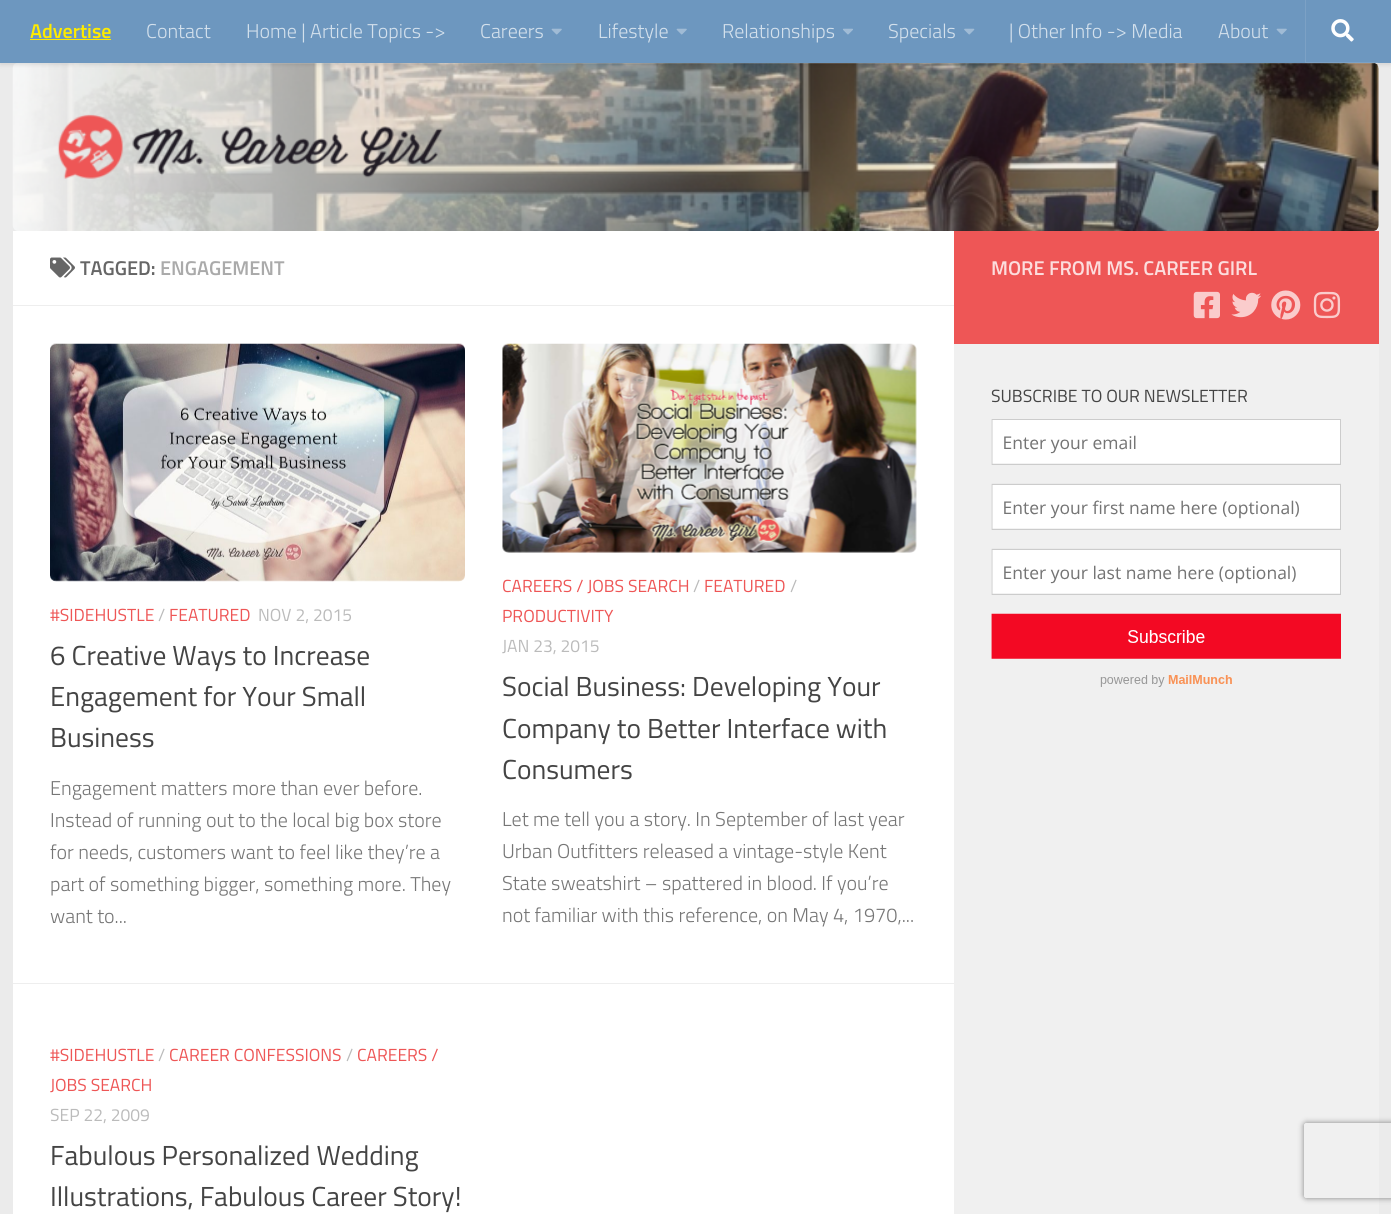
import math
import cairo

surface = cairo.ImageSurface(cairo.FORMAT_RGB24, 1391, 1214)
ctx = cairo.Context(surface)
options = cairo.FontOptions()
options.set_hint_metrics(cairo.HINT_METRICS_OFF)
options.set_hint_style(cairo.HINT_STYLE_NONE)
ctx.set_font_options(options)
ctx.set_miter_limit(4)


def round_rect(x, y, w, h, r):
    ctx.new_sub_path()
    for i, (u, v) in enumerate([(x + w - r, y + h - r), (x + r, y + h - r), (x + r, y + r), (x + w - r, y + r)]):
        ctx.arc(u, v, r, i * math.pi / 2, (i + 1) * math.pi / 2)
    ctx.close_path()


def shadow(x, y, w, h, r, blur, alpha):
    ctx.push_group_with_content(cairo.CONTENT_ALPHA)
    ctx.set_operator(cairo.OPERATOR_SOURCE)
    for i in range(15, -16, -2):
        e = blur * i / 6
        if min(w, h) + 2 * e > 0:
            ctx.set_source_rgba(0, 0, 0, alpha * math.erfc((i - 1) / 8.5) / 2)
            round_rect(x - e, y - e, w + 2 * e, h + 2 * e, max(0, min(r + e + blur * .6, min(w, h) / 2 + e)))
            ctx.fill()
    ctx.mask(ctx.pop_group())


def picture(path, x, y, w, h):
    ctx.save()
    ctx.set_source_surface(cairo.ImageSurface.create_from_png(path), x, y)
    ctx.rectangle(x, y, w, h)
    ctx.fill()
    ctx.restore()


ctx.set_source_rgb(0.918, 0.918, 0.918)
ctx.paint()
picture("img5.png", 12, 63, 1367, 168)
ctx.set_source_rgba(1, 1, 1, 0.15)
ctx.rectangle(0, 63, 1391, 1)
ctx.fill()
ctx.set_source_rgb(0, 0, 0)
shadow(0, 0, 1391, 63, 0, 3, 0.2)
ctx.set_source_rgb(0.427, 0.592, 0.749)
ctx.rectangle(0, 0, 1391, 63)
ctx.fill()
ctx.select_font_face("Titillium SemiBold")
ctx.set_font_size(20)
ctx.set_source_rgb(1, 0.918, 0)
ctx.move_to(30, 38)
ctx.show_text("Advertise")
ctx.rectangle(30, 39, 81, 1)
ctx.fill()
ctx.select_font_face("Titillium Light")
ctx.set_source_rgb(0.827, 0.878, 0.925)
ctx.move_to(146, 38)
ctx.show_text("Contact")
ctx.move_to(246, 38)
ctx.show_text("Home | Article Topics ->")
ctx.move_to(480, 38)
ctx.show_text("Careers")
picture("img1.png", 551, 28, 11, 7)
ctx.move_to(598, 38)
ctx.show_text("Lifestyle")
picture("img1.png", 676, 28, 11, 7)
ctx.move_to(722, 38)
ctx.show_text("Relationships")
picture("img2.png", 843, 28, 10, 7)
ctx.move_to(888, 38)
ctx.show_text("Specials")
picture("img3.png", 964, 28, 11, 7)
ctx.move_to(1009, 38)
ctx.show_text("| Other Info -> Media")
ctx.move_to(1218, 38)
ctx.show_text("About")
picture("img1.png", 1276, 28, 11, 7)
ctx.set_source_rgb(0.486, 0.631, 0.773)
ctx.new_path()
ctx.move_to(1305, 0)
ctx.line_to(1305, 63)
ctx.line_to(1378, 63)
ctx.line_to(1378, 62)
ctx.line_to(1306, 62)
ctx.line_to(1306, 0)
ctx.close_path()
ctx.fill()
picture("img4.png", 1331, 19, 23, 23)
picture("img6.png", 57, 114, 386, 65)
ctx.set_source_rgb(1, 1, 1)
ctx.rectangle(13, 231, 941, 983)
ctx.fill()
ctx.set_source_rgb(0.933, 0.933, 0.933)
ctx.rectangle(13, 305, 941, 1)
ctx.fill()
picture("img7.png", 50, 257, 25, 21)
ctx.select_font_face("Titillium SemiBold")
ctx.set_source_rgb(0.4, 0.4, 0.4)
ctx.move_to(80, 275)
ctx.show_text("TAGGED:")
ctx.set_source_rgb(0.667, 0.667, 0.667)
ctx.move_to(160, 275)
ctx.show_text("ENGAGEMENT")
ctx.set_source_rgb(0.933, 0.933, 0.933)
ctx.rectangle(13, 983, 941, 1)
ctx.fill()
picture("img8.png", 50, 343, 415, 239)
ctx.select_font_face("Titillium")
ctx.set_font_size(17.5)
ctx.set_source_rgb(0.933, 0.337, 0.337)
ctx.move_to(50, 621)
ctx.show_text("#SIDEHUSTLE")
ctx.set_source_rgb(0.733, 0.733, 0.733)
ctx.move_to(158, 621)
ctx.show_text("/")
ctx.set_source_rgb(0.933, 0.337, 0.337)
ctx.move_to(169, 621)
ctx.show_text("FEATURED")
ctx.set_source_rgb(0.733, 0.733, 0.733)
ctx.move_to(258, 621)
ctx.show_text("NOV 2, 2015")
ctx.set_font_size(27.5)
ctx.set_source_rgb(0.267, 0.267, 0.267)
ctx.move_to(50, 665)
ctx.show_text("6 Creative Ways to Increase")
ctx.move_to(50, 706)
ctx.show_text("Engagement for Your Small")
ctx.move_to(50, 747)
ctx.show_text("Business")
ctx.select_font_face("Titillium Light")
ctx.set_font_size(20)
ctx.set_source_rgb(0.463, 0.463, 0.463)
ctx.move_to(50, 795)
ctx.show_text("Engagement matters more than ever before.")
ctx.move_to(50, 827)
ctx.show_text("Instead of running out to the local big box store")
ctx.move_to(50, 859)
ctx.show_text("for needs, customers want to feel like they’re a")
ctx.move_to(50, 891)
ctx.show_text("part of something bigger, something more. They")
ctx.move_to(50, 923)
ctx.show_text("want to...")
picture("img9.png", 502, 343, 415, 210)
ctx.select_font_face("Titillium")
ctx.set_font_size(17.5)
ctx.set_source_rgb(0.933, 0.337, 0.337)
ctx.move_to(502, 592)
ctx.show_text("CAREERS / JOBS SEARCH")
ctx.set_source_rgb(0.733, 0.733, 0.733)
ctx.move_to(693, 592)
ctx.show_text("/")
ctx.set_source_rgb(0.933, 0.337, 0.337)
ctx.move_to(704, 592)
ctx.show_text("FEATURED")
ctx.set_source_rgb(0.733, 0.733, 0.733)
ctx.move_to(790, 592)
ctx.show_text("/")
ctx.set_source_rgb(0.933, 0.337, 0.337)
ctx.move_to(502, 622)
ctx.show_text("PRODUCTIVITY")
ctx.set_source_rgb(0.733, 0.733, 0.733)
ctx.move_to(502, 652)
ctx.show_text("JAN 23, 2015")
ctx.set_font_size(27.5)
ctx.set_source_rgb(0.267, 0.267, 0.267)
ctx.move_to(502, 696)
ctx.show_text("Social Business: Developing Your")
ctx.move_to(502, 738)
ctx.show_text("Company to Better Interface with")
ctx.move_to(502, 779)
ctx.show_text("Consumers")
ctx.select_font_face("Titillium Light")
ctx.set_font_size(20)
ctx.set_source_rgb(0.463, 0.463, 0.463)
ctx.move_to(502, 826)
ctx.show_text("Let me tell you a story. In September of last year")
ctx.move_to(502, 858)
ctx.show_text("Urban Outfitters released a vintage-style Kent")
ctx.move_to(502, 890)
ctx.show_text("State sweatshirt – spattered in blood. If you’re")
ctx.move_to(502, 922)
ctx.show_text("not familiar with this reference, on May 4, 1970,...")
ctx.select_font_face("Titillium")
ctx.set_font_size(17.5)
ctx.set_source_rgb(0.933, 0.337, 0.337)
ctx.move_to(50, 1061)
ctx.show_text("#SIDEHUSTLE")
ctx.set_source_rgb(0.733, 0.733, 0.733)
ctx.move_to(158, 1061)
ctx.show_text("/")
ctx.set_source_rgb(0.933, 0.337, 0.337)
ctx.move_to(169, 1061)
ctx.show_text("CAREER CONFESSIONS")
ctx.set_source_rgb(0.733, 0.733, 0.733)
ctx.move_to(346, 1061)
ctx.show_text("/")
ctx.set_source_rgb(0.933, 0.337, 0.337)
ctx.move_to(357, 1061)
ctx.show_text("CAREERS /")
ctx.move_to(50, 1091)
ctx.show_text("JOBS SEARCH")
ctx.set_source_rgb(0.733, 0.733, 0.733)
ctx.move_to(50, 1121)
ctx.show_text("SEP 22, 2009")
ctx.set_font_size(27.5)
ctx.set_source_rgb(0.267, 0.267, 0.267)
ctx.move_to(50, 1165)
ctx.show_text("Fabulous Personalized Wedding")
ctx.move_to(50, 1206)
ctx.show_text("Illustrations, Fabulous Career Story!")
ctx.set_source_rgb(0.933, 0.337, 0.337)
ctx.rectangle(954, 231, 425, 113)
ctx.fill()
ctx.select_font_face("Titillium SemiBold")
ctx.set_font_size(20)
ctx.set_source_rgb(0.988, 0.867, 0.867)
ctx.move_to(991, 275)
ctx.show_text("MORE FROM MS. CAREER GIRL")
picture("img10.png", 1193, 291, 27, 28)
picture("img11.png", 1231, 292, 30, 26)
picture("img12.png", 1271, 290, 30, 30)
picture("img13.png", 1313, 291, 28, 28)
ctx.set_source_rgb(0.941, 0.941, 0.941)
ctx.rectangle(954, 344, 425, 870)
ctx.fill()
ctx.select_font_face("Titillium")
ctx.set_font_size(17.6)
ctx.set_source_rgb(0.267, 0.267, 0.267)
ctx.move_to(991, 402)
ctx.show_text("SUBSCRIBE TO OUR NEWSLETTER")
picture("img14.png", 991, 419, 350, 268)
ctx.save()
ctx.set_fill_rule(cairo.FILL_RULE_EVEN_ODD)
ctx.new_path()
ctx.move_to(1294, 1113)
ctx.line_to(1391, 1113)
ctx.line_to(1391, 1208)
ctx.line_to(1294, 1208)
ctx.close_path()
ctx.move_to(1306.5, 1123)
ctx.line_to(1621.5, 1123)
ctx.curve_to(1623, 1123, 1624, 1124, 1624, 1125.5)
ctx.line_to(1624, 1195.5)
ctx.curve_to(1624, 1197, 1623, 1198, 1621.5, 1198)
ctx.line_to(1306.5, 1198)
ctx.curve_to(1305, 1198, 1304, 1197, 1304, 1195.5)
ctx.line_to(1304, 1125.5)
ctx.curve_to(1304, 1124, 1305, 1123, 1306.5, 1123)
ctx.close_path()
ctx.clip()
ctx.set_source_rgb(0.502, 0.502, 0.502)
shadow(1304, 1123, 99, 75, 2.5, 3, 1)
ctx.restore()
surface.write_to_png("page.png")
